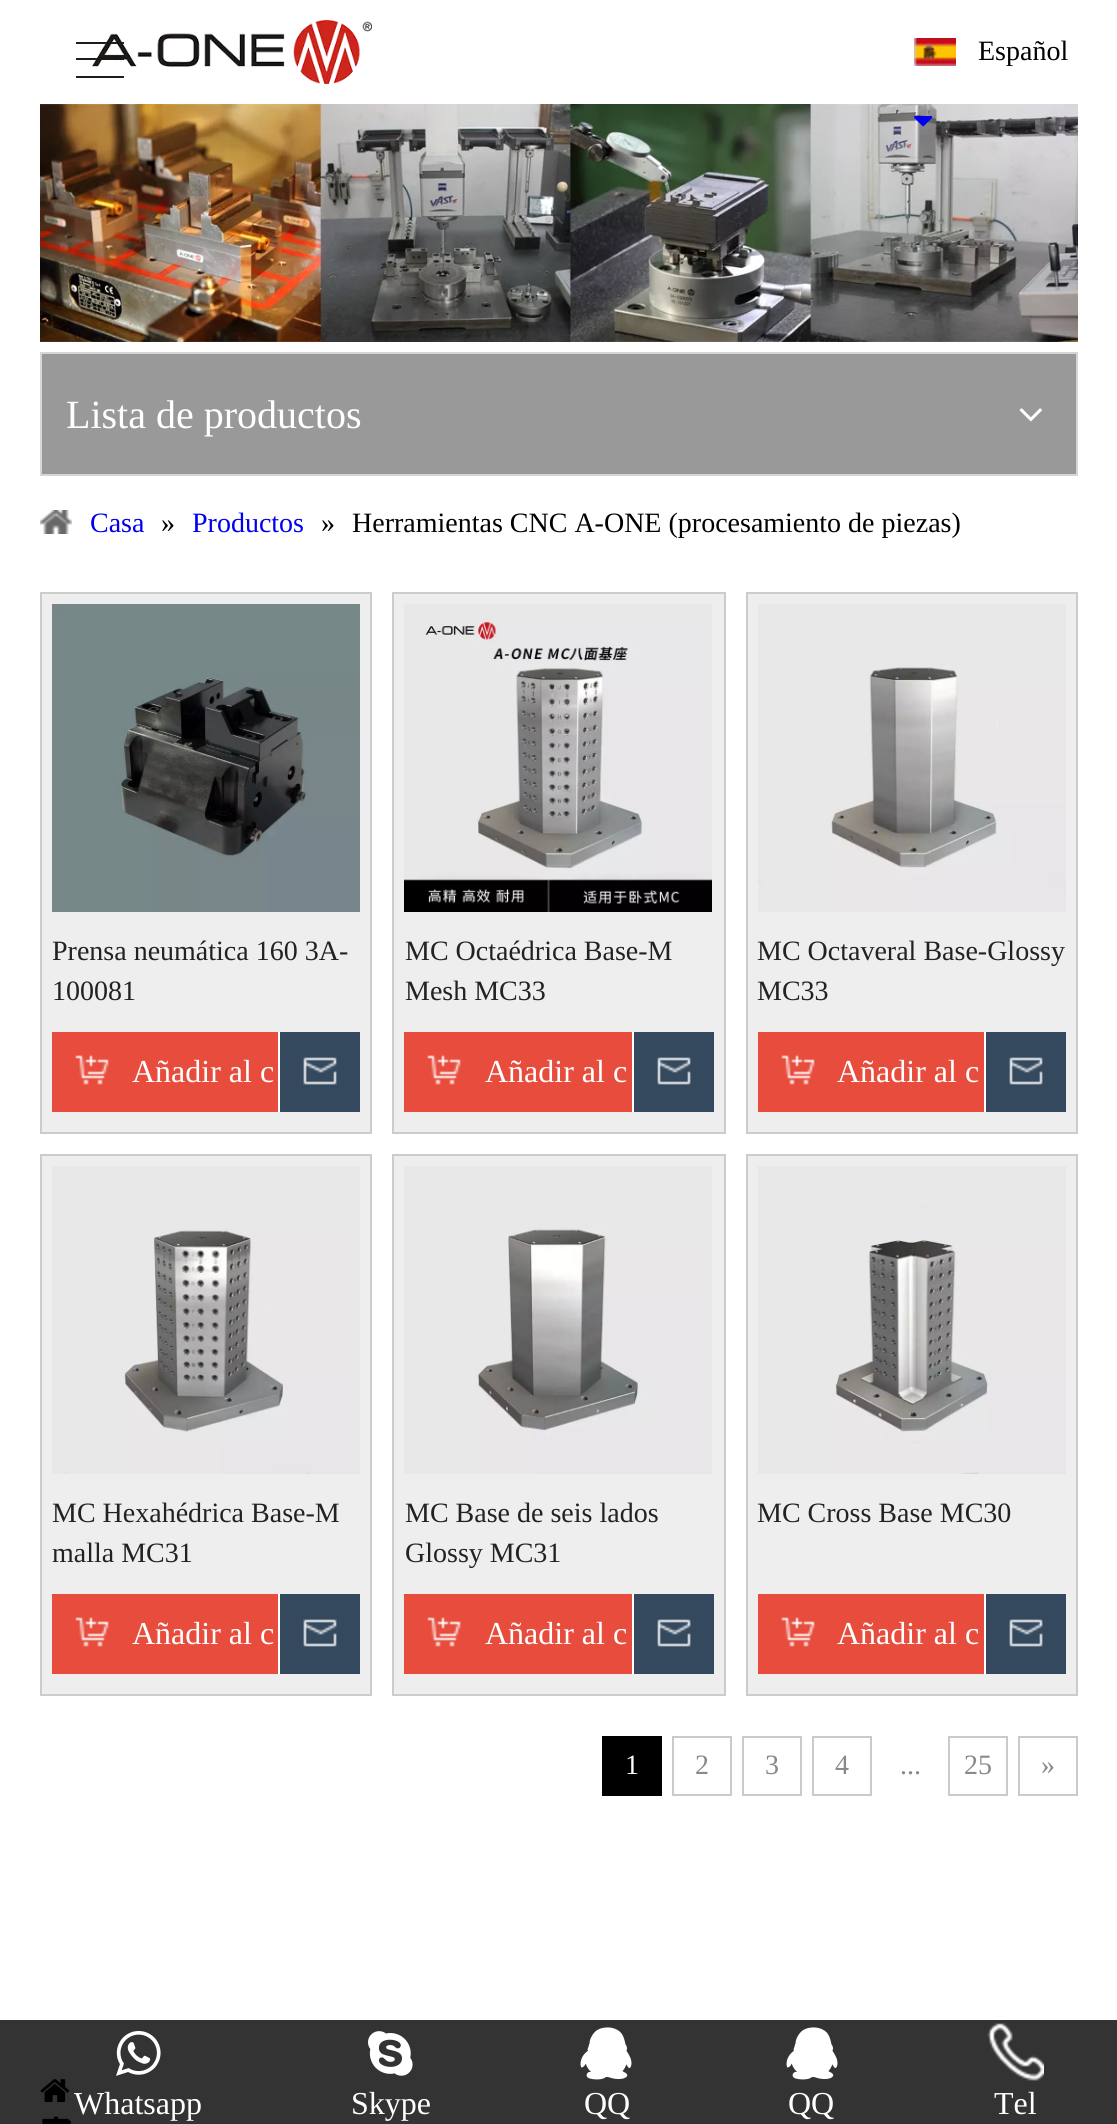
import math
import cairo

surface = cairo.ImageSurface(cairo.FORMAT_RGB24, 1117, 2124)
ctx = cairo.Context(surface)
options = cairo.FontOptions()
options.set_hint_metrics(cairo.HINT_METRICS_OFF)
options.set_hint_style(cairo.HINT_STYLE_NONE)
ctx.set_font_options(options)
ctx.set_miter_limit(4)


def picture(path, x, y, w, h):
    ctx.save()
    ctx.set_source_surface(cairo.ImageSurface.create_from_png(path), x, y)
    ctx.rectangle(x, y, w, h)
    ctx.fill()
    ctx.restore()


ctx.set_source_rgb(1, 1, 1)
ctx.paint()
ctx.set_source_rgb(0.11, 0.11, 0.11)
ctx.rectangle(76, 42, 48, 2)
ctx.fill()
ctx.rectangle(76, 58, 48, 2)
ctx.fill()
ctx.rectangle(76, 76, 48, 2)
ctx.fill()
picture("img1.png", 92, 20, 280, 64)
picture("img2.png", 914, 38, 42, 28)
ctx.select_font_face("Liberation Serif")
ctx.set_font_size(28)
ctx.set_source_rgb(0, 0, 0)
ctx.move_to(978, 60)
ctx.show_text("Español")
picture("img4.png", 40, 104, 1038, 238)
picture("img3.png", 914, 116, 19, 11)
ctx.rectangle(41, 353, 1036, 122)
ctx.set_source_rgb(0.839, 0.839, 0.839)
ctx.stroke()
ctx.set_source_rgb(0.6, 0.6, 0.6)
ctx.rectangle(42, 354, 1034, 120)
ctx.fill()
ctx.set_font_size(40)
ctx.set_source_rgb(1, 1, 1)
ctx.move_to(66, 428)
ctx.show_text("Lista de productos")
picture("img5.png", 1019, 408, 23, 14)
picture("img6.png", 40, 510, 32, 24)
ctx.set_font_size(28)
ctx.set_source_rgb(0, 0, 0.933)
ctx.move_to(90, 532)
ctx.show_text("Casa")
ctx.set_source_rgb(0, 0, 0)
ctx.move_to(161, 532)
ctx.show_text("»")
ctx.set_source_rgb(0, 0, 0.933)
ctx.move_to(192, 532)
ctx.show_text("Productos")
ctx.set_source_rgb(0, 0, 0)
ctx.move_to(321, 532)
ctx.show_text("»")
ctx.move_to(352, 532)
ctx.show_text("Herramientas CNC A-ONE (procesamiento de piezas)")
ctx.set_source_rgb(0.933, 0.933, 0.933)
ctx.rectangle(41, 593, 330, 540)
ctx.fill_preserve()
ctx.set_source_rgb(0.8, 0.8, 0.8)
ctx.stroke()
picture("img7.png", 52, 604, 308, 308)
ctx.set_source_rgb(0.133, 0.133, 0.133)
ctx.move_to(52, 960)
ctx.show_text("Prensa neumática 160 3A-")
ctx.move_to(52, 1000)
ctx.show_text("100081")
ctx.set_source_rgb(0.906, 0.298, 0.235)
ctx.rectangle(52, 1032, 226, 80)
ctx.fill()
picture("img8.png", 75, 1055, 34, 30)
ctx.set_font_size(32)
ctx.set_source_rgb(1, 1, 1)
ctx.move_to(132, 1082)
ctx.show_text("Añadir al c")
ctx.set_source_rgb(0.204, 0.286, 0.369)
ctx.rectangle(280, 1032, 80, 80)
ctx.fill()
ctx.set_source_rgb(1, 1, 1)
ctx.rectangle(278, 1032, 2, 80)
ctx.fill()
picture("img9.png", 303, 1057, 34, 28)
ctx.set_source_rgb(0.933, 0.933, 0.933)
ctx.rectangle(393, 593, 332, 540)
ctx.fill_preserve()
ctx.set_source_rgb(0.8, 0.8, 0.8)
ctx.stroke()
picture("img10.png", 404, 604, 308, 308)
ctx.set_font_size(28)
ctx.set_source_rgb(0.133, 0.133, 0.133)
ctx.move_to(405, 960)
ctx.show_text("MC Octaédrica Base-M")
ctx.move_to(405, 1000)
ctx.show_text("Mesh MC33")
ctx.set_source_rgb(0.906, 0.298, 0.235)
ctx.rectangle(404, 1032, 228, 80)
ctx.fill()
picture("img8.png", 427, 1055, 34, 30)
ctx.set_font_size(32)
ctx.set_source_rgb(1, 1, 1)
ctx.move_to(485, 1082)
ctx.show_text("Añadir al c")
ctx.set_source_rgb(0.204, 0.286, 0.369)
ctx.rectangle(634, 1032, 80, 80)
ctx.fill()
ctx.set_source_rgb(1, 1, 1)
ctx.rectangle(632, 1032, 2, 80)
ctx.fill()
picture("img9.png", 657, 1057, 34, 28)
ctx.set_source_rgb(0.933, 0.933, 0.933)
ctx.rectangle(747, 593, 330, 540)
ctx.fill_preserve()
ctx.set_source_rgb(0.8, 0.8, 0.8)
ctx.stroke()
picture("img11.png", 758, 604, 308, 308)
ctx.set_font_size(28)
ctx.set_source_rgb(0.133, 0.133, 0.133)
ctx.move_to(757, 960)
ctx.show_text("MC Octaveral Base-Glossy")
ctx.move_to(757, 1000)
ctx.show_text("MC33")
ctx.set_source_rgb(0.906, 0.298, 0.235)
ctx.rectangle(758, 1032, 226, 80)
ctx.fill()
picture("img8.png", 781, 1055, 34, 30)
ctx.set_font_size(32)
ctx.set_source_rgb(1, 1, 1)
ctx.move_to(837, 1082)
ctx.show_text("Añadir al c")
ctx.set_source_rgb(0.204, 0.286, 0.369)
ctx.rectangle(986, 1032, 80, 80)
ctx.fill()
ctx.set_source_rgb(1, 1, 1)
ctx.rectangle(984, 1032, 2, 80)
ctx.fill()
picture("img9.png", 1009, 1057, 34, 28)
ctx.set_source_rgb(0.933, 0.933, 0.933)
ctx.rectangle(41, 1155, 330, 540)
ctx.fill_preserve()
ctx.set_source_rgb(0.8, 0.8, 0.8)
ctx.stroke()
picture("img12.png", 52, 1166, 308, 308)
ctx.set_font_size(28)
ctx.set_source_rgb(0.133, 0.133, 0.133)
ctx.move_to(52, 1522)
ctx.show_text("MC Hexahédrica Base-M")
ctx.move_to(52, 1562)
ctx.show_text("malla MC31")
ctx.set_source_rgb(0.906, 0.298, 0.235)
ctx.rectangle(52, 1594, 226, 80)
ctx.fill()
picture("img8.png", 75, 1617, 34, 30)
ctx.set_font_size(32)
ctx.set_source_rgb(1, 1, 1)
ctx.move_to(132, 1644)
ctx.show_text("Añadir al c")
ctx.set_source_rgb(0.204, 0.286, 0.369)
ctx.rectangle(280, 1594, 80, 80)
ctx.fill()
ctx.set_source_rgb(1, 1, 1)
ctx.rectangle(278, 1594, 2, 80)
ctx.fill()
picture("img9.png", 303, 1619, 34, 28)
ctx.set_source_rgb(0.933, 0.933, 0.933)
ctx.rectangle(393, 1155, 332, 540)
ctx.fill_preserve()
ctx.set_source_rgb(0.8, 0.8, 0.8)
ctx.stroke()
picture("img13.png", 404, 1166, 308, 308)
ctx.set_font_size(28)
ctx.set_source_rgb(0.133, 0.133, 0.133)
ctx.move_to(405, 1522)
ctx.show_text("MC Base de seis lados")
ctx.move_to(405, 1562)
ctx.show_text("Glossy MC31")
ctx.set_source_rgb(0.906, 0.298, 0.235)
ctx.rectangle(404, 1594, 228, 80)
ctx.fill()
picture("img8.png", 427, 1617, 34, 30)
ctx.set_font_size(32)
ctx.set_source_rgb(1, 1, 1)
ctx.move_to(485, 1644)
ctx.show_text("Añadir al c")
ctx.set_source_rgb(0.204, 0.286, 0.369)
ctx.rectangle(634, 1594, 80, 80)
ctx.fill()
ctx.set_source_rgb(1, 1, 1)
ctx.rectangle(632, 1594, 2, 80)
ctx.fill()
picture("img9.png", 657, 1619, 34, 28)
ctx.set_source_rgb(0.933, 0.933, 0.933)
ctx.rectangle(747, 1155, 330, 540)
ctx.fill_preserve()
ctx.set_source_rgb(0.8, 0.8, 0.8)
ctx.stroke()
picture("img14.png", 758, 1166, 308, 308)
ctx.set_font_size(28)
ctx.set_source_rgb(0.133, 0.133, 0.133)
ctx.move_to(757, 1522)
ctx.show_text("MC Cross Base MC30")
ctx.set_source_rgb(0.906, 0.298, 0.235)
ctx.rectangle(758, 1594, 226, 80)
ctx.fill()
picture("img8.png", 781, 1617, 34, 30)
ctx.set_font_size(32)
ctx.set_source_rgb(1, 1, 1)
ctx.move_to(837, 1644)
ctx.show_text("Añadir al c")
ctx.set_source_rgb(0.204, 0.286, 0.369)
ctx.rectangle(986, 1594, 80, 80)
ctx.fill()
ctx.set_source_rgb(1, 1, 1)
ctx.rectangle(984, 1594, 2, 80)
ctx.fill()
picture("img9.png", 1009, 1619, 34, 28)
ctx.set_source_rgb(0, 0, 0)
ctx.rectangle(602, 1736, 60, 60)
ctx.fill()
ctx.set_font_size(28)
ctx.set_source_rgb(1, 1, 1)
ctx.move_to(625, 1774)
ctx.show_text("1")
ctx.rectangle(673, 1737, 58, 58)
ctx.set_source_rgb(0.788, 0.792, 0.792)
ctx.stroke()
ctx.set_source_rgb(0.537, 0.537, 0.537)
ctx.move_to(695, 1774)
ctx.show_text("2")
ctx.rectangle(743, 1737, 58, 58)
ctx.set_source_rgb(0.788, 0.792, 0.792)
ctx.stroke()
ctx.set_source_rgb(0.537, 0.537, 0.537)
ctx.move_to(765, 1774)
ctx.show_text("3")
ctx.rectangle(813, 1737, 58, 58)
ctx.set_source_rgb(0.788, 0.792, 0.792)
ctx.stroke()
ctx.set_source_rgb(0.537, 0.537, 0.537)
ctx.move_to(835, 1774)
ctx.show_text("4")
ctx.move_to(900, 1774)
ctx.show_text("...")
ctx.rectangle(949, 1737, 58, 58)
ctx.set_source_rgb(0.788, 0.792, 0.792)
ctx.stroke()
ctx.set_source_rgb(0.537, 0.537, 0.537)
ctx.move_to(964, 1774)
ctx.show_text("25")
ctx.rectangle(1019, 1737, 58, 58)
ctx.set_source_rgb(0.788, 0.792, 0.792)
ctx.stroke()
ctx.set_source_rgb(0.537, 0.537, 0.537)
ctx.move_to(1041, 1774)
ctx.show_text("»")
picture("img15.png", 40, 2079, 30, 23)
picture("img16.png", 42, 2116, 30, 8)
ctx.set_source_rgba(0, 0, 0, 0.8)
ctx.rectangle(0, 2020, 1117, 104)
ctx.fill()
picture("img17.png", 116, 2031, 45, 45)
ctx.set_font_size(32)
ctx.set_source_rgb(1, 1, 1)
ctx.move_to(74, 2114)
ctx.show_text("Whatsapp")
picture("img18.png", 368, 2031, 45, 45)
ctx.move_to(351, 2114)
ctx.show_text("Skype")
picture("img19.png", 580, 2027, 52, 53)
ctx.move_to(584, 2114)
ctx.show_text("QQ")
picture("img19.png", 786, 2027, 52, 53)
ctx.move_to(788, 2114)
ctx.show_text("QQ")
picture("img20.png", 987, 2023, 57, 58)
ctx.move_to(994, 2114)
ctx.show_text("Tel")
surface.write_to_png("page.png")
